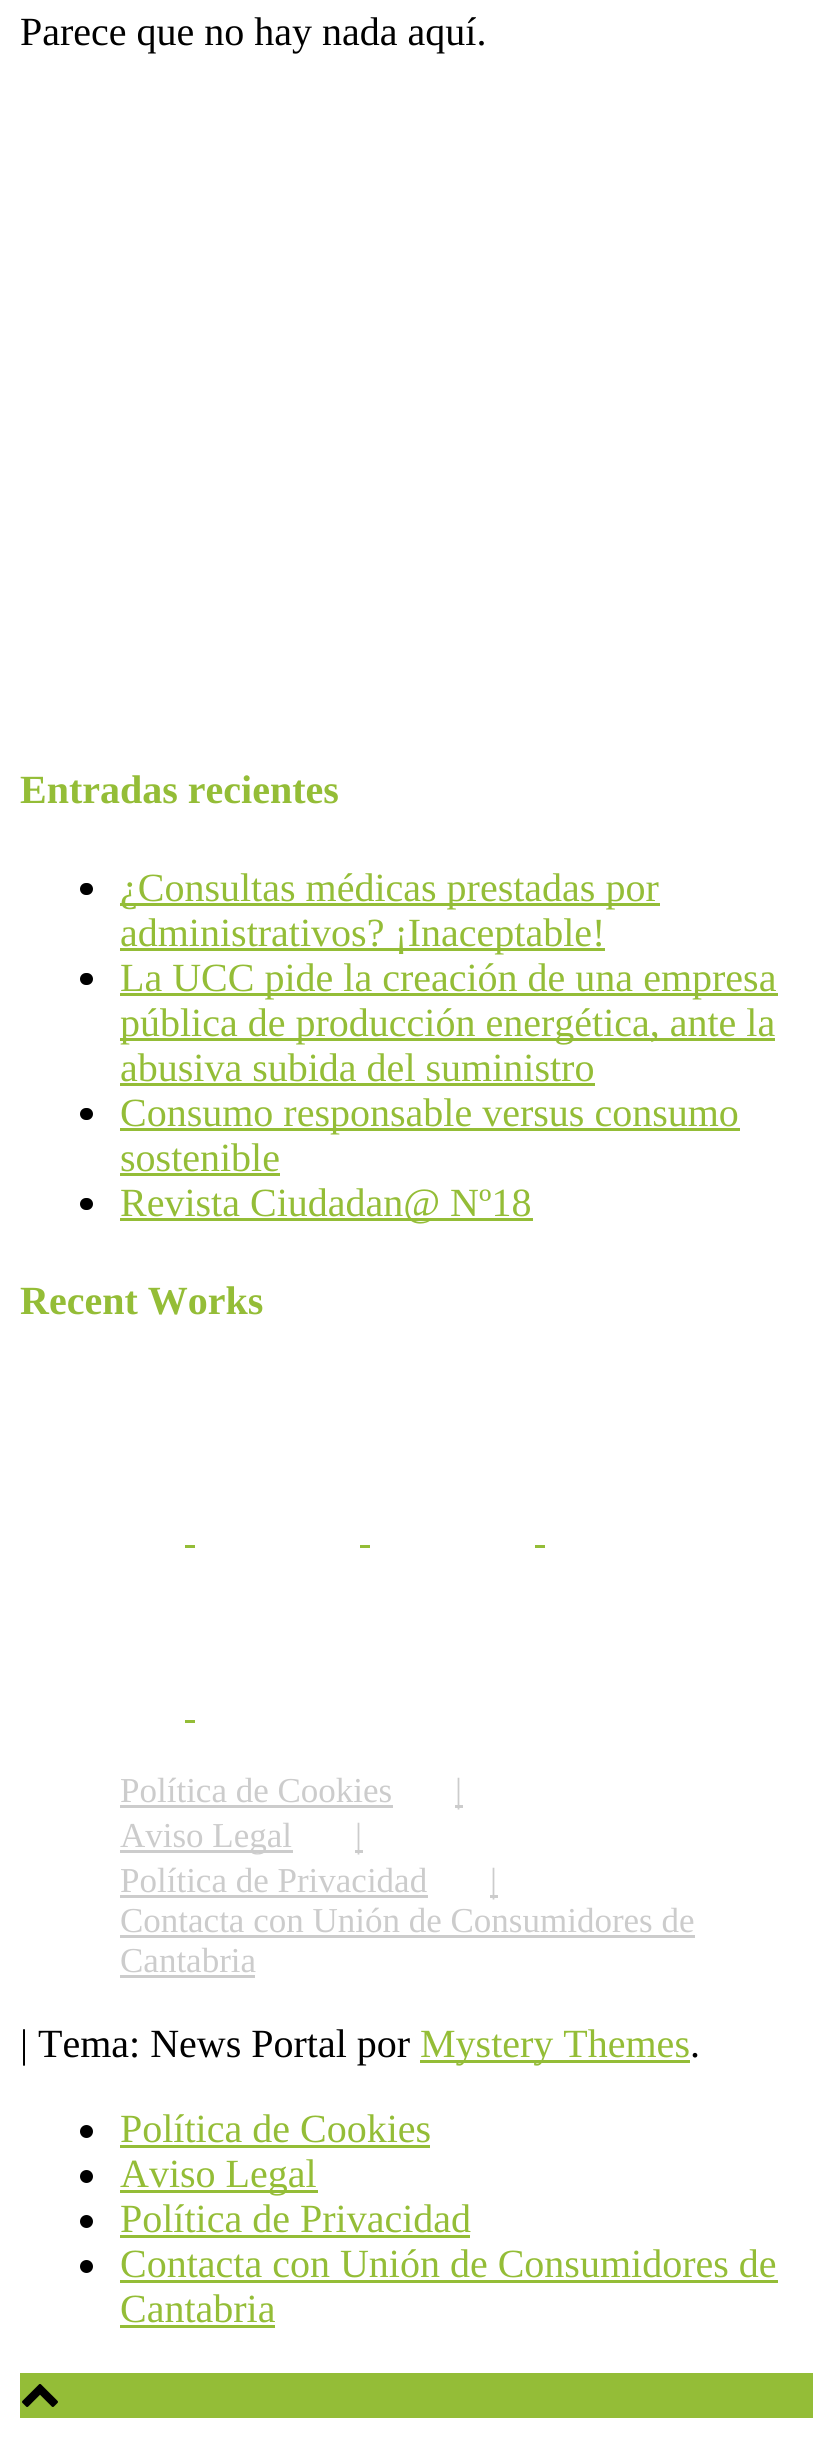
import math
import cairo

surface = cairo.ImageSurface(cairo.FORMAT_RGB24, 831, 2437)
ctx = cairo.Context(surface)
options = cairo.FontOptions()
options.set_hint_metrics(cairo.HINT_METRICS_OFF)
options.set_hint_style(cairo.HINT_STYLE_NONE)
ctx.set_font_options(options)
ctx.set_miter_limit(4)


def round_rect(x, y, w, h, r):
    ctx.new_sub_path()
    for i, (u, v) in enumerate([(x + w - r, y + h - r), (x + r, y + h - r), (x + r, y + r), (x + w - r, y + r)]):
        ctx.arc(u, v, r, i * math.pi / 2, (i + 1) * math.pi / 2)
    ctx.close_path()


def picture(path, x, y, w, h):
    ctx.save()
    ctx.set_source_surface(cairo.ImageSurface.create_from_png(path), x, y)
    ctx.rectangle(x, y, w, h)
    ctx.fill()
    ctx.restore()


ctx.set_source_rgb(1, 1, 1)
ctx.paint()
ctx.select_font_face("Liberation Serif")
ctx.set_font_size(40)
ctx.set_source_rgb(0, 0, 0)
ctx.move_to(20, 45)
ctx.show_text("Parece que no hay nada aquí.")
ctx.select_font_face("Liberation Serif", cairo.FONT_SLANT_NORMAL, cairo.FONT_WEIGHT_BOLD)
ctx.set_source_rgb(0.58, 0.741, 0.216)
ctx.move_to(20, 803)
ctx.show_text("Entradas recientes")
ctx.set_source_rgb(0, 0, 0)
round_rect(80, 883, 13, 12, 6)
ctx.fill()
ctx.set_source_rgb(0.58, 0.741, 0.216)
ctx.rectangle(120, 903, 540, 3)
ctx.fill()
ctx.select_font_face("Liberation Serif")
ctx.move_to(120, 901)
ctx.show_text("¿Consultas médicas prestadas por")
ctx.rectangle(120, 948, 485, 3)
ctx.fill()
ctx.move_to(120, 946)
ctx.show_text("administrativos? ¡Inaceptable!")
ctx.set_source_rgb(0, 0, 0)
round_rect(80, 973, 13, 12, 6)
ctx.fill()
ctx.set_source_rgb(0.58, 0.741, 0.216)
ctx.rectangle(120, 993, 658, 3)
ctx.fill()
ctx.move_to(120, 991)
ctx.show_text("La UCC pide la creación de una empresa")
ctx.rectangle(120, 1038, 655, 3)
ctx.fill()
ctx.move_to(120, 1036)
ctx.show_text("pública de producción energética, ante la")
ctx.move_to(120, 1081)
ctx.show_text("abusiva subida del suministro")
ctx.rectangle(120, 1083, 475, 3)
ctx.fill()
ctx.set_source_rgb(0, 0, 0)
round_rect(80, 1108, 13, 12, 6)
ctx.fill()
ctx.set_source_rgb(0.58, 0.741, 0.216)
ctx.rectangle(120, 1128, 620, 3)
ctx.fill()
ctx.move_to(120, 1126)
ctx.show_text("Consumo responsable versus consumo")
ctx.move_to(120, 1171)
ctx.show_text("sostenible")
ctx.rectangle(120, 1173, 160, 3)
ctx.fill()
ctx.set_source_rgb(0, 0, 0)
round_rect(80, 1198, 13, 12, 6)
ctx.fill()
ctx.set_source_rgb(0.58, 0.741, 0.216)
ctx.rectangle(120, 1218, 413, 3)
ctx.fill()
ctx.move_to(120, 1216)
ctx.show_text("Revista Ciudadan@ Nº18")
ctx.select_font_face("Liberation Serif", cairo.FONT_SLANT_NORMAL, cairo.FONT_WEIGHT_BOLD)
ctx.move_to(20, 1314)
ctx.show_text("Recent Works")
ctx.rectangle(185, 1545, 10, 3)
ctx.fill()
ctx.rectangle(360, 1545, 10, 3)
ctx.fill()
ctx.rectangle(535, 1545, 10, 3)
ctx.fill()
ctx.rectangle(185, 1720, 10, 3)
ctx.fill()
ctx.select_font_face("Liberation Serif")
ctx.set_font_size(35)
ctx.set_source_rgb(0.8, 0.8, 0.8)
ctx.move_to(120, 1802)
ctx.show_text("Política de Cookies")
ctx.rectangle(120, 1805, 273, 3)
ctx.fill()
ctx.rectangle(455, 1805, 8, 3)
ctx.fill()
ctx.move_to(455, 1802)
ctx.show_text("|")
ctx.rectangle(120, 1850, 173, 3)
ctx.fill()
ctx.move_to(120, 1847)
ctx.show_text("Aviso Legal")
ctx.rectangle(355, 1850, 8, 3)
ctx.fill()
ctx.move_to(355, 1847)
ctx.show_text("|")
ctx.move_to(120, 1892)
ctx.show_text("Política de Privacidad")
ctx.rectangle(120, 1895, 308, 3)
ctx.fill()
ctx.rectangle(490, 1895, 8, 3)
ctx.fill()
ctx.move_to(490, 1892)
ctx.show_text("|")
ctx.move_to(120, 1932)
ctx.show_text("Contacta con Unión de Consumidores de")
ctx.rectangle(120, 1935, 575, 3)
ctx.fill()
ctx.move_to(120, 1972)
ctx.show_text("Cantabria")
ctx.rectangle(120, 1975, 135, 3)
ctx.fill()
ctx.set_font_size(40)
ctx.set_source_rgb(0, 0, 0)
ctx.move_to(20, 2057)
ctx.show_text("| Tema: News Portal por")
ctx.set_source_rgb(0.58, 0.741, 0.216)
ctx.rectangle(420, 2060, 270, 3)
ctx.fill()
ctx.move_to(420, 2057)
ctx.show_text("Mystery Themes")
ctx.set_source_rgb(0, 0, 0)
ctx.move_to(690, 2057)
ctx.show_text(".")
ctx.new_path()
ctx.arc(86.5, 2131.5, 6.5, 0, 2 * math.pi)
ctx.fill()
ctx.set_source_rgb(0.58, 0.741, 0.216)
ctx.move_to(120, 2142)
ctx.show_text("Política de Cookies")
ctx.rectangle(120, 2145, 310, 3)
ctx.fill()
ctx.set_source_rgb(0, 0, 0)
ctx.arc(86.5, 2176.5, 6.5, 0, 2 * math.pi)
ctx.fill()
ctx.set_source_rgb(0.58, 0.741, 0.216)
ctx.rectangle(120, 2190, 198, 3)
ctx.fill()
ctx.move_to(120, 2187)
ctx.show_text("Aviso Legal")
ctx.set_source_rgb(0, 0, 0)
ctx.new_path()
ctx.arc(86.5, 2221.5, 6.5, 0, 2 * math.pi)
ctx.fill()
ctx.set_source_rgb(0.58, 0.741, 0.216)
ctx.move_to(120, 2232)
ctx.show_text("Política de Privacidad")
ctx.rectangle(120, 2235, 350, 3)
ctx.fill()
ctx.set_source_rgb(0, 0, 0)
ctx.arc(86.5, 2266.5, 6.5, 0, 2 * math.pi)
ctx.fill()
ctx.set_source_rgb(0.58, 0.741, 0.216)
ctx.move_to(120, 2277)
ctx.show_text("Contacta con Unión de Consumidores de")
ctx.rectangle(120, 2280, 658, 3)
ctx.fill()
ctx.move_to(120, 2322)
ctx.show_text("Cantabria")
ctx.rectangle(120, 2325, 155, 3)
ctx.fill()
ctx.rectangle(20, 2373, 793, 45)
ctx.fill()
picture("img1.png", 22, 2384, 36, 23)
surface.write_to_png("page.png")
